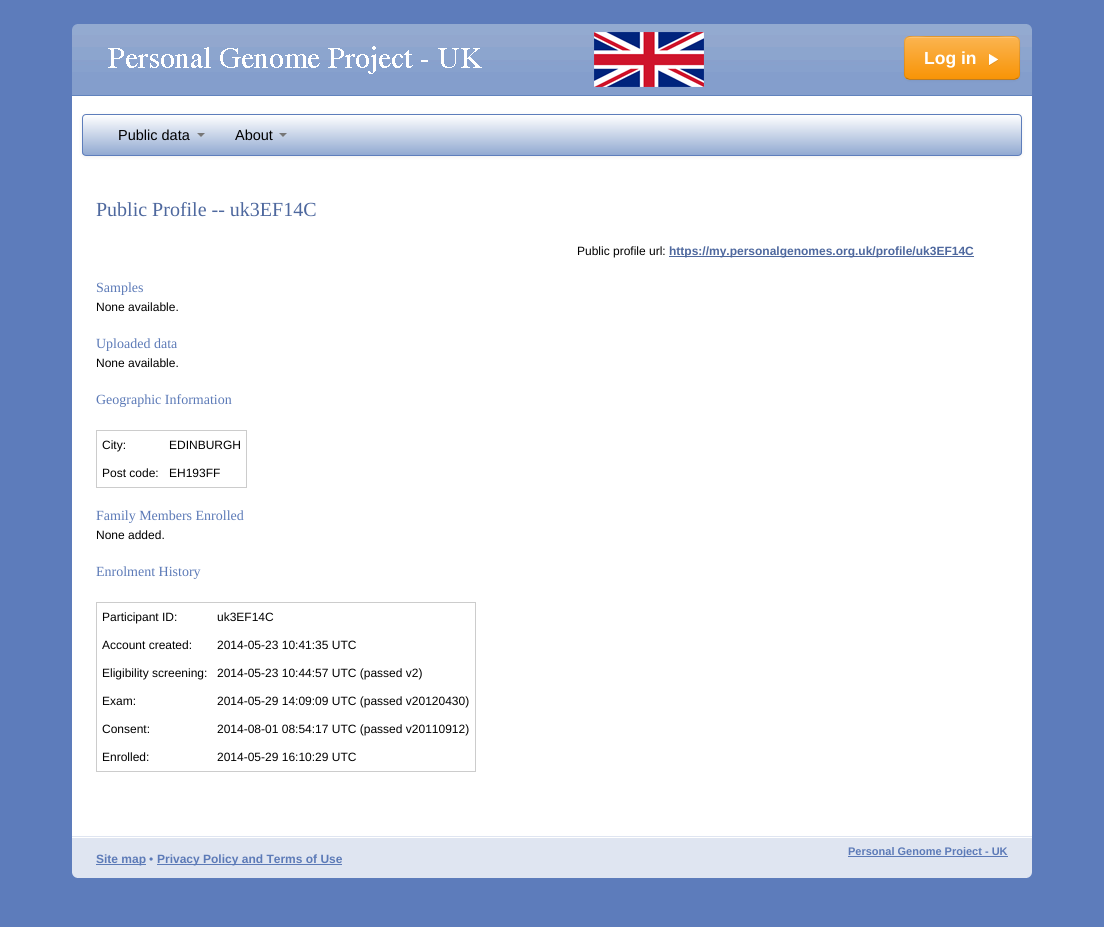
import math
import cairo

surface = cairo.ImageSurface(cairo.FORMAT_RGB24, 1104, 927)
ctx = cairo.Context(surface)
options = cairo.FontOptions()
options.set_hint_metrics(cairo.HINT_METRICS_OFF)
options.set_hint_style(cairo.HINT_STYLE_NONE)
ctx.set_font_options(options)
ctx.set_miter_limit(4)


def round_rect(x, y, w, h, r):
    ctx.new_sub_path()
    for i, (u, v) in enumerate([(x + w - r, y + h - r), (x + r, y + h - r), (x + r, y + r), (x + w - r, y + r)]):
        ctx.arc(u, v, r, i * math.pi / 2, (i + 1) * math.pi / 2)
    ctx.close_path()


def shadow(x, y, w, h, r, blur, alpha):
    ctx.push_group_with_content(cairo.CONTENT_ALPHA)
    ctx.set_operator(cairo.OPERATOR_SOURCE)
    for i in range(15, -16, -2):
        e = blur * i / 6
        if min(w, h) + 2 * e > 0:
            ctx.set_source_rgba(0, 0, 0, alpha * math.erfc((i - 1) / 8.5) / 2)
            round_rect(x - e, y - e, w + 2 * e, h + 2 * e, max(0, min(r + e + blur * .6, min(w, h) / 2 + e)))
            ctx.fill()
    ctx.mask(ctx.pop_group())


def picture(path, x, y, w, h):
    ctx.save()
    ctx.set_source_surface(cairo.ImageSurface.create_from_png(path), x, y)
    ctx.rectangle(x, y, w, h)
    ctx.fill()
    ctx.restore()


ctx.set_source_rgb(0.365, 0.486, 0.733)
ctx.paint()
ctx.set_source_rgb(1, 1, 1)
ctx.rectangle(72, 96, 960, 740)
ctx.fill()
picture("img1.png", 72, 24, 960, 72)
ctx.set_source_rgb(0.875, 0.898, 0.945)
ctx.rectangle(72, 836, 960, 1)
ctx.fill()
ctx.set_source_rgb(0, 0, 0)
shadow(904, 37, 116, 44, 6, 1, 0.05)
ctx.set_source_rgb(0.98, 0.655, 0.196)
round_rect(904, 36, 116, 44, 6)
ctx.fill()
ctx.save()
round_rect(904, 36, 116, 44, 6)
ctx.clip()
gradient = cairo.LinearGradient(962, 37, 962, 79)
gradient.add_color_stop_rgba(0, 0.984, 0.706, 0.314, 1)
gradient.add_color_stop_rgba(1, 0.973, 0.58, 0.024, 1)
ctx.set_source(gradient)
ctx.rectangle(904, 37, 116, 42)
ctx.fill()
ctx.restore()
ctx.set_source_rgba(1, 1, 1, 0.2)
ctx.new_path()
ctx.move_to(910, 38)
ctx.line_to(1014, 38)
ctx.curve_to(1017, 38, 1019, 40, 1019, 43)
ctx.curve_to(1019, 33, 1001, 37, 997, 37)
ctx.line_to(927, 37)
ctx.curve_to(923, 37, 905, 33, 905, 43)
ctx.curve_to(905, 40, 907, 38, 910, 38)
ctx.close_path()
ctx.fill()
ctx.new_path()
ctx.move_to(1018, 78)
ctx.line_to(1014.5, 79.5)
ctx.line_to(909.5, 79.5)
ctx.line_to(906, 78)
ctx.set_source_rgba(0, 0, 0, 0.25)
ctx.set_line_width(1)
ctx.stroke()
ctx.new_path()
ctx.move_to(906, 78)
ctx.curve_to(903.5, 75.5, 904.5, 71.5, 904.5, 68.5)
ctx.line_to(904.5, 58)
ctx.curve_to(904.5, 33, 901.5, 36.5, 927.5, 36.5)
ctx.line_to(996.5, 36.5)
ctx.curve_to(1022.5, 36.5, 1019.5, 33, 1019.5, 58)
ctx.line_to(1019.5, 68.5)
ctx.curve_to(1019.5, 71.5, 1020.5, 75.5, 1018, 78)
ctx.set_source_rgba(0, 0, 0, 0.1)
ctx.stroke()
ctx.select_font_face("Liberation Sans", cairo.FONT_SLANT_NORMAL, cairo.FONT_WEIGHT_BOLD)
ctx.set_font_size(17.5)
ctx.set_source_rgb(1, 1, 1)
ctx.move_to(924, 64)
ctx.show_text("Log in")
picture("img2.png", 989, 54, 9, 12)
ctx.set_source_rgb(0, 0, 0)
shadow(82, 115, 940, 42, 4, 2, 0.07)
ctx.save()
round_rect(82, 114, 940, 42, 4)
ctx.clip()
gradient = cairo.LinearGradient(552, 115, 552, 155)
gradient.add_color_stop_rgba(0, 1, 1, 1, 1)
gradient.add_color_stop_rgba(1, 0.569, 0.663, 0.82, 1)
ctx.set_source(gradient)
ctx.rectangle(82, 115, 940, 40)
ctx.fill()
ctx.restore()
round_rect(82.5, 114.5, 939, 41, 3.5)
ctx.set_source_rgb(0.365, 0.49, 0.733)
ctx.stroke()
ctx.select_font_face("Liberation Sans")
ctx.set_font_size(14.5)
ctx.set_source_rgb(0, 0, 0)
ctx.move_to(118, 140)
ctx.show_text("Public data")
ctx.set_source_rgb(0.467, 0.467, 0.467)
ctx.new_path()
ctx.move_to(197, 133)
ctx.line_to(205, 133)
ctx.line_to(201, 137)
ctx.close_path()
ctx.fill()
ctx.set_source_rgb(0, 0, 0)
ctx.move_to(235, 140)
ctx.show_text("About")
ctx.set_source_rgb(0.467, 0.467, 0.467)
ctx.new_path()
ctx.move_to(279, 133)
ctx.line_to(287, 133)
ctx.line_to(283, 137)
ctx.close_path()
ctx.fill()
ctx.select_font_face("Liberation Serif")
ctx.set_font_size(20)
ctx.set_source_rgb(0.306, 0.408, 0.62)
ctx.move_to(96, 216)
ctx.show_text("Public Profile -- uk3EF14C")
ctx.select_font_face("Liberation Sans")
ctx.set_font_size(12)
ctx.set_source_rgb(0, 0, 0)
ctx.move_to(577, 255)
ctx.show_text("Public profile url:")
ctx.set_source_rgb(0.306, 0.408, 0.62)
ctx.rectangle(669, 256, 305, 1)
ctx.fill()
ctx.select_font_face("Liberation Sans", cairo.FONT_SLANT_NORMAL, cairo.FONT_WEIGHT_BOLD)
ctx.move_to(669, 255)
ctx.show_text("https://my.personalgenomes.org.uk/profile/uk3EF14C")
ctx.select_font_face("Liberation Serif")
ctx.set_font_size(14)
ctx.set_source_rgb(0.361, 0.478, 0.718)
ctx.move_to(96, 292)
ctx.show_text("Samples")
ctx.select_font_face("Liberation Sans")
ctx.set_font_size(12)
ctx.set_source_rgb(0, 0, 0)
ctx.move_to(96, 311)
ctx.show_text("None available.")
ctx.select_font_face("Liberation Serif")
ctx.set_font_size(14)
ctx.set_source_rgb(0.361, 0.478, 0.718)
ctx.move_to(96, 348)
ctx.show_text("Uploaded data")
ctx.select_font_face("Liberation Sans")
ctx.set_font_size(12)
ctx.set_source_rgb(0, 0, 0)
ctx.move_to(96, 367)
ctx.show_text("None available.")
ctx.select_font_face("Liberation Serif")
ctx.set_font_size(14)
ctx.set_source_rgb(0.361, 0.478, 0.718)
ctx.move_to(96, 404)
ctx.show_text("Geographic Information")
ctx.set_source_rgb(0.8, 0.8, 0.8)
ctx.rectangle(96, 430, 151, 1)
ctx.fill()
ctx.rectangle(246, 430, 1, 58)
ctx.fill()
ctx.rectangle(96, 487, 151, 1)
ctx.fill()
ctx.rectangle(96, 430, 1, 58)
ctx.fill()
ctx.select_font_face("Liberation Sans")
ctx.set_font_size(12)
ctx.set_source_rgb(0, 0, 0)
ctx.move_to(102, 449)
ctx.show_text("City:")
ctx.move_to(169, 449)
ctx.show_text("EDINBURGH")
ctx.move_to(102, 477)
ctx.show_text("Post code:")
ctx.move_to(169, 477)
ctx.show_text("EH193FF")
ctx.select_font_face("Liberation Serif")
ctx.set_font_size(14)
ctx.set_source_rgb(0.361, 0.478, 0.718)
ctx.move_to(96, 520)
ctx.show_text("Family Members Enrolled")
ctx.select_font_face("Liberation Sans")
ctx.set_font_size(12)
ctx.set_source_rgb(0, 0, 0)
ctx.move_to(96, 539)
ctx.show_text("None added.")
ctx.select_font_face("Liberation Serif")
ctx.set_font_size(14)
ctx.set_source_rgb(0.361, 0.478, 0.718)
ctx.move_to(96, 576)
ctx.show_text("Enrolment History")
ctx.set_source_rgb(0.8, 0.8, 0.8)
ctx.rectangle(96, 602, 380, 1)
ctx.fill()
ctx.rectangle(475, 602, 1, 170)
ctx.fill()
ctx.rectangle(96, 771, 380, 1)
ctx.fill()
ctx.rectangle(96, 602, 1, 170)
ctx.fill()
ctx.select_font_face("Liberation Sans")
ctx.set_font_size(12)
ctx.set_source_rgb(0, 0, 0)
ctx.move_to(102, 621)
ctx.show_text("Participant ID:")
ctx.move_to(217, 621)
ctx.show_text("uk3EF14C")
ctx.move_to(102, 649)
ctx.show_text("Account created:")
ctx.move_to(217, 649)
ctx.show_text("2014-05-23 10:41:35 UTC")
ctx.move_to(102, 677)
ctx.show_text("Eligibility screening:")
ctx.move_to(217, 677)
ctx.show_text("2014-05-23 10:44:57 UTC (passed v2)")
ctx.move_to(102, 705)
ctx.show_text("Exam:")
ctx.move_to(217, 705)
ctx.show_text("2014-05-29 14:09:09 UTC (passed v20120430)")
ctx.move_to(102, 733)
ctx.show_text("Consent:")
ctx.move_to(217, 733)
ctx.show_text("2014-08-01 08:54:17 UTC (passed v20110912)")
ctx.move_to(102, 761)
ctx.show_text("Enrolled:")
ctx.move_to(217, 761)
ctx.show_text("2014-05-29 16:10:29 UTC")
ctx.set_source_rgb(0.875, 0.898, 0.945)
ctx.rectangle(72, 838, 960, 34)
ctx.fill()
picture("img3.png", 72, 872, 960, 6)
ctx.set_source_rgb(1, 1, 1)
ctx.rectangle(72, 837, 960, 1)
ctx.fill()
ctx.set_source_rgb(0.361, 0.478, 0.718)
ctx.rectangle(848, 856, 160, 1)
ctx.fill()
ctx.select_font_face("Liberation Sans", cairo.FONT_SLANT_NORMAL, cairo.FONT_WEIGHT_BOLD)
ctx.set_font_size(11)
ctx.move_to(848, 855)
ctx.show_text("Personal Genome Project - UK")
ctx.rectangle(96, 864, 50, 1)
ctx.fill()
ctx.set_font_size(12)
ctx.move_to(96, 863)
ctx.show_text("Site map")
ctx.select_font_face("Liberation Sans")
ctx.move_to(149, 863)
ctx.show_text("•")
ctx.rectangle(157, 864, 185, 1)
ctx.fill()
ctx.select_font_face("Liberation Sans", cairo.FONT_SLANT_NORMAL, cairo.FONT_WEIGHT_BOLD)
ctx.move_to(157, 863)
ctx.show_text("Privacy Policy and Terms of Use")
surface.write_to_png("page.png")
